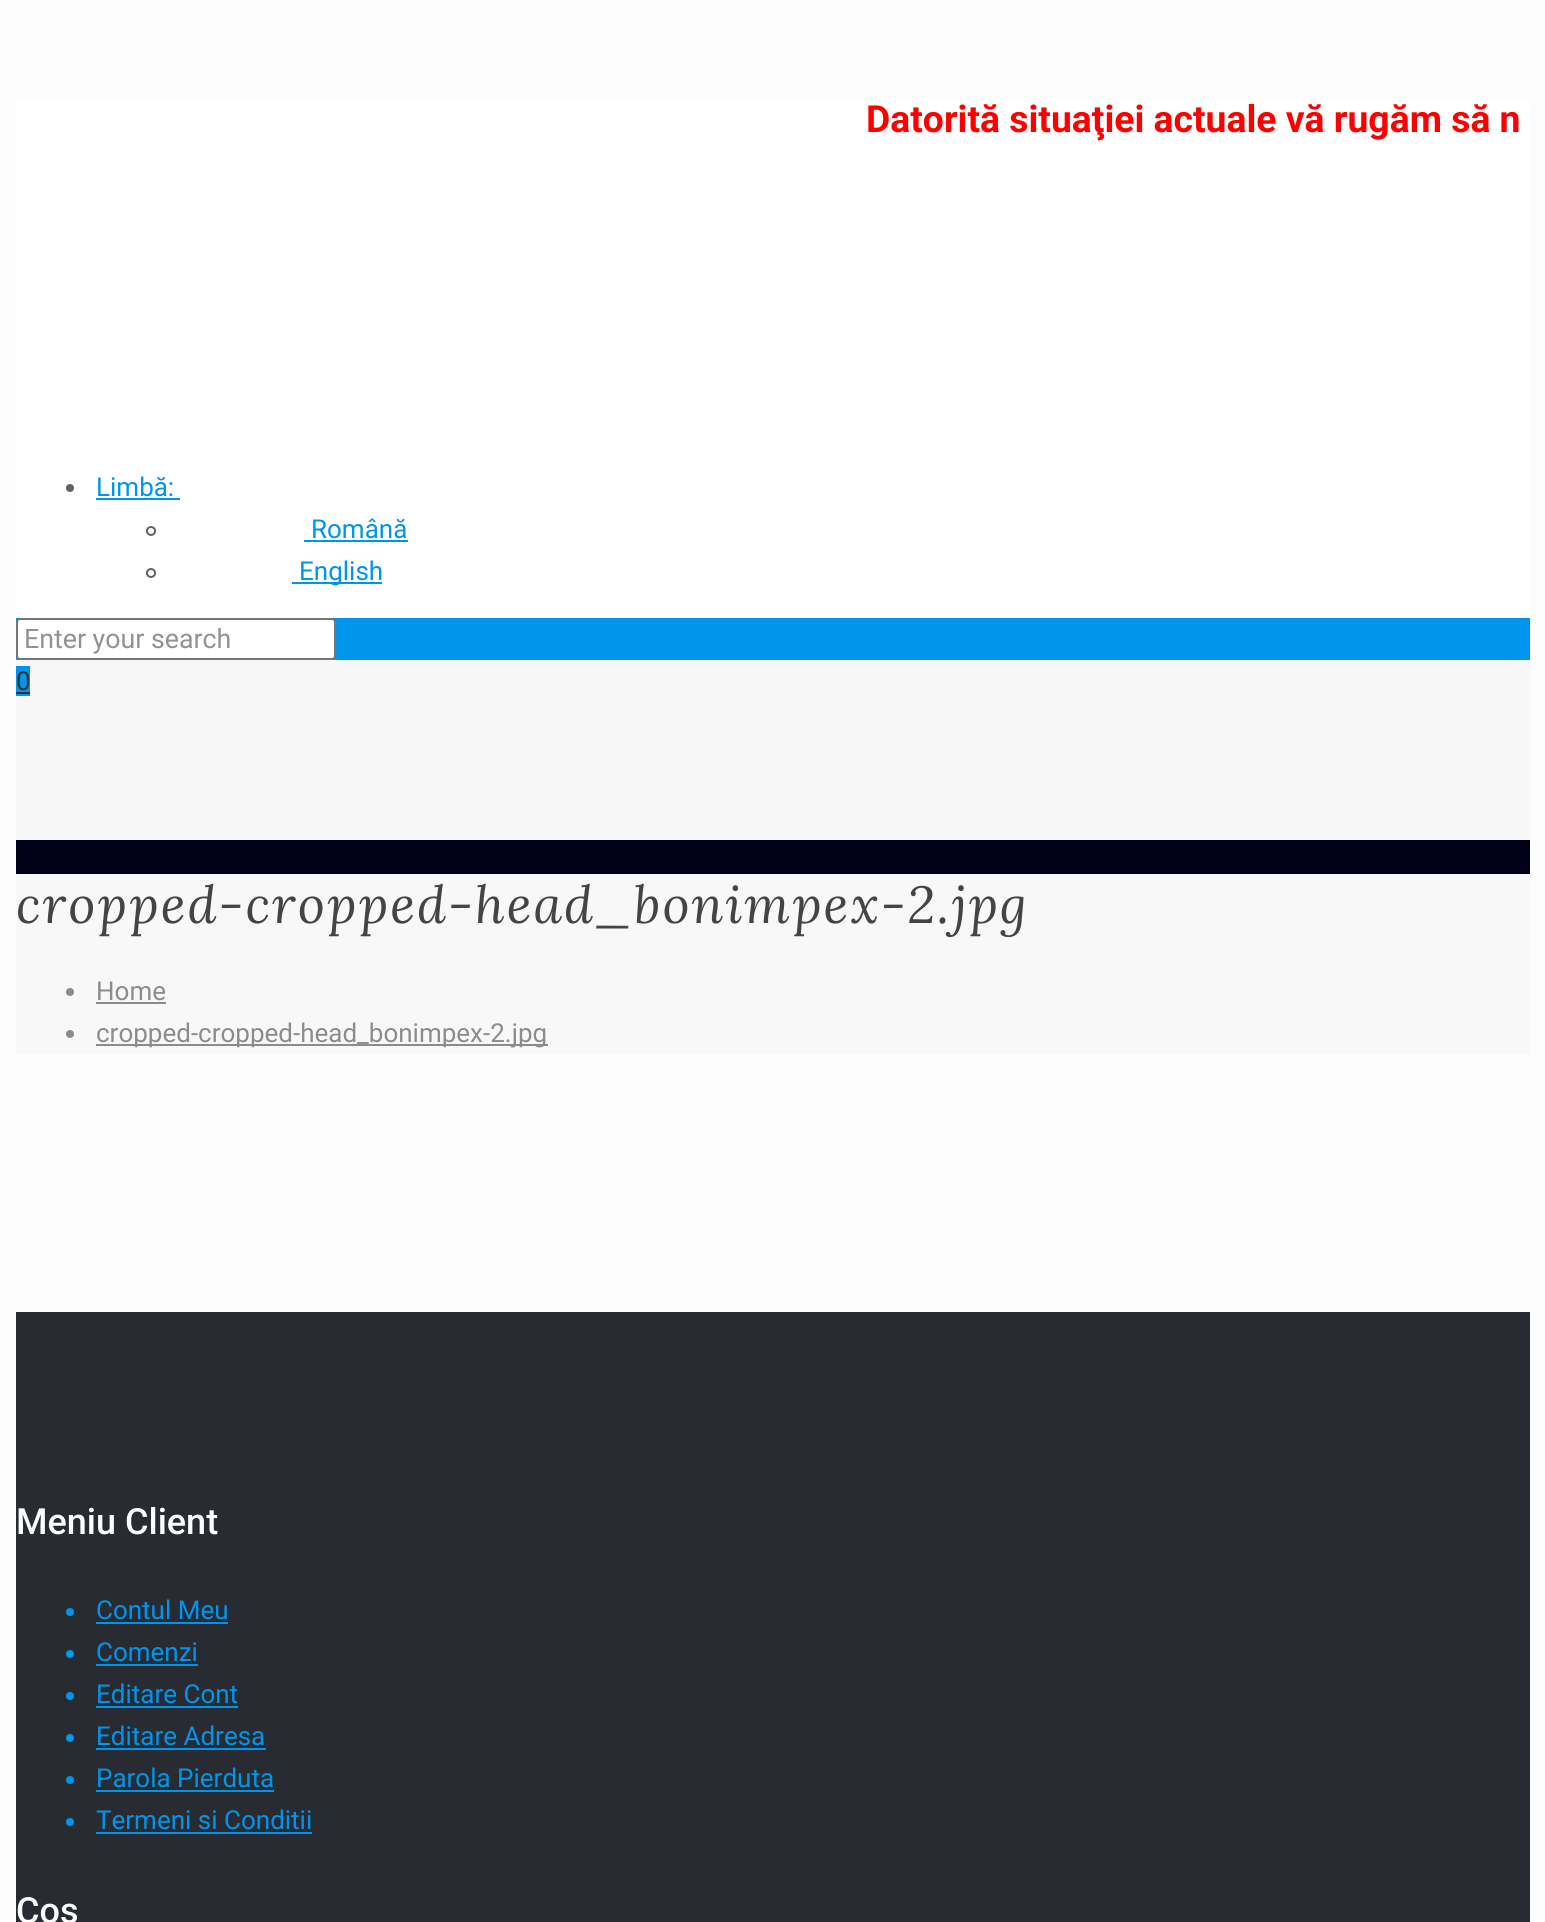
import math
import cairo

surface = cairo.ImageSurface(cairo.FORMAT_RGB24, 1545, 1922)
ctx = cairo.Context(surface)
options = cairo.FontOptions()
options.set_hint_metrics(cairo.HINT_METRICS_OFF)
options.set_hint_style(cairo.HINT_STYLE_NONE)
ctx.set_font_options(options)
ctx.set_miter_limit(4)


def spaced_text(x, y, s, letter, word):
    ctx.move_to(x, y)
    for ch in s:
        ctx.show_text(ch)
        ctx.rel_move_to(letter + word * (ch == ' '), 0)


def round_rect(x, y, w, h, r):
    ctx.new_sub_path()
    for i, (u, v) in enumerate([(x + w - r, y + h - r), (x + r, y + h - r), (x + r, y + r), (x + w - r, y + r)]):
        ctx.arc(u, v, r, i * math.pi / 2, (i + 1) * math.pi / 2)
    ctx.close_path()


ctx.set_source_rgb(0.988, 0.988, 0.988)
ctx.paint()
ctx.set_source_rgb(1, 1, 1)
ctx.rectangle(16, 100, 1514, 518)
ctx.fill()
ctx.select_font_face("Roboto", cairo.FONT_SLANT_NORMAL, cairo.FONT_WEIGHT_BOLD)
ctx.set_font_size(37.3)
ctx.set_source_rgb(1, 0, 0)
ctx.move_to(866, 132)
ctx.show_text("Datorită situaţiei actuale vă rugăm să n")
ctx.set_source_rgb(0, 0.004, 0.098)
ctx.rectangle(16, 840, 1514, 34)
ctx.fill()
ctx.set_source_rgb(0.384, 0.384, 0.384)
ctx.arc(70, 488, 4, 0, 2 * math.pi)
ctx.fill()
ctx.select_font_face("Roboto")
ctx.set_font_size(26)
ctx.set_source_rgb(0, 0.584, 0.922)
ctx.move_to(96, 496)
ctx.show_text("Limbă:")
ctx.rectangle(96, 498, 84, 2)
ctx.fill()
ctx.arc(151, 531, 4, 0, 2 * math.pi)
ctx.set_source_rgb(0.384, 0.384, 0.384)
ctx.stroke()
ctx.set_source_rgb(0, 0.584, 0.922)
ctx.move_to(311, 538)
ctx.show_text("Română")
ctx.rectangle(304, 540, 104, 2)
ctx.fill()
ctx.arc(151, 573, 4, 0, 2 * math.pi)
ctx.set_source_rgb(0.384, 0.384, 0.384)
ctx.stroke()
ctx.set_source_rgb(0, 0.584, 0.922)
ctx.rectangle(292, 582, 90, 2)
ctx.fill()
ctx.move_to(299, 580)
ctx.show_text("English")
ctx.rectangle(16, 618, 1514, 42)
ctx.fill()
ctx.set_source_rgb(1, 1, 1)
round_rect(17, 619, 318, 40, 3)
ctx.fill_preserve()
ctx.set_source_rgb(0.463, 0.463, 0.463)
ctx.stroke()
ctx.set_font_size(26.75)
ctx.set_source_rgb(0.573, 0.573, 0.573)
ctx.move_to(24, 648)
ctx.show_text("Enter your search")
ctx.set_source_rgb(0.961, 0.961, 0.961)
ctx.rectangle(16, 660, 1514, 180)
ctx.fill()
ctx.set_source_rgb(0, 0.584, 0.922)
ctx.rectangle(16, 666, 14, 30)
ctx.fill()
ctx.set_font_size(26)
ctx.set_source_rgb(0.2, 0.2, 0.2)
ctx.move_to(16, 690)
ctx.show_text("0")
ctx.rectangle(16, 692, 14, 2)
ctx.fill()
ctx.set_source_rgb(0.969, 0.969, 0.969)
ctx.rectangle(16, 874, 1514, 180)
ctx.fill()
ctx.select_font_face("Lora", cairo.FONT_SLANT_ITALIC)
ctx.set_font_size(52)
ctx.set_source_rgb(0.267, 0.267, 0.267)
spaced_text(16, 923, "cropped-cropped-head_bonimpex-2.jpg", 2, 0)
ctx.set_source_rgb(0.549, 0.549, 0.549)
ctx.new_path()
ctx.arc(70, 992, 4, 0, 2 * math.pi)
ctx.fill()
ctx.select_font_face("Roboto")
ctx.set_font_size(26)
ctx.move_to(96, 1000)
ctx.show_text("Home")
ctx.rectangle(96, 1002, 70, 2)
ctx.fill()
ctx.arc(70, 1034, 4, 0, 2 * math.pi)
ctx.fill()
ctx.rectangle(96, 1044, 452, 2)
ctx.fill()
ctx.move_to(96, 1042)
ctx.show_text("cropped-cropped-head_bonimpex-2.jpg")
ctx.set_source_rgb(0.161, 0.169, 0.2)
ctx.rectangle(16, 1312, 1514, 610)
ctx.fill()
ctx.select_font_face("Roboto Medium")
ctx.set_font_size(36)
ctx.set_source_rgb(1, 1, 1)
ctx.move_to(16, 1534)
ctx.show_text("Meniu Client")
ctx.set_source_rgb(0, 0.584, 0.922)
ctx.new_path()
ctx.arc(70, 1612, 4, 0, 2 * math.pi)
ctx.fill()
ctx.select_font_face("Roboto")
ctx.set_font_size(26)
ctx.move_to(96, 1619)
ctx.show_text("Contul Meu")
ctx.rectangle(96, 1622, 132, 2)
ctx.fill()
ctx.arc(70, 1654, 4, 0, 2 * math.pi)
ctx.fill()
ctx.move_to(96, 1661)
ctx.show_text("Comenzi")
ctx.rectangle(96, 1664, 102, 2)
ctx.fill()
ctx.arc(70, 1696, 4, 0, 2 * math.pi)
ctx.fill()
ctx.move_to(96, 1703)
ctx.show_text("Editare Cont")
ctx.rectangle(96, 1706, 142, 2)
ctx.fill()
ctx.arc(70, 1738, 4, 0, 2 * math.pi)
ctx.fill()
ctx.move_to(96, 1745)
ctx.show_text("Editare Adresa")
ctx.rectangle(96, 1748, 170, 2)
ctx.fill()
ctx.arc(70, 1780, 4, 0, 2 * math.pi)
ctx.fill()
ctx.move_to(96, 1787)
ctx.show_text("Parola Pierduta")
ctx.rectangle(96, 1790, 178, 2)
ctx.fill()
ctx.arc(70, 1822, 4, 0, 2 * math.pi)
ctx.fill()
ctx.move_to(96, 1829)
ctx.show_text("Termeni si Conditii")
ctx.rectangle(96, 1832, 216, 2)
ctx.fill()
ctx.select_font_face("Roboto Medium")
ctx.set_font_size(36)
ctx.set_source_rgb(1, 1, 1)
ctx.move_to(16, 1923)
ctx.show_text("Coș")
surface.write_to_png("page.png")
